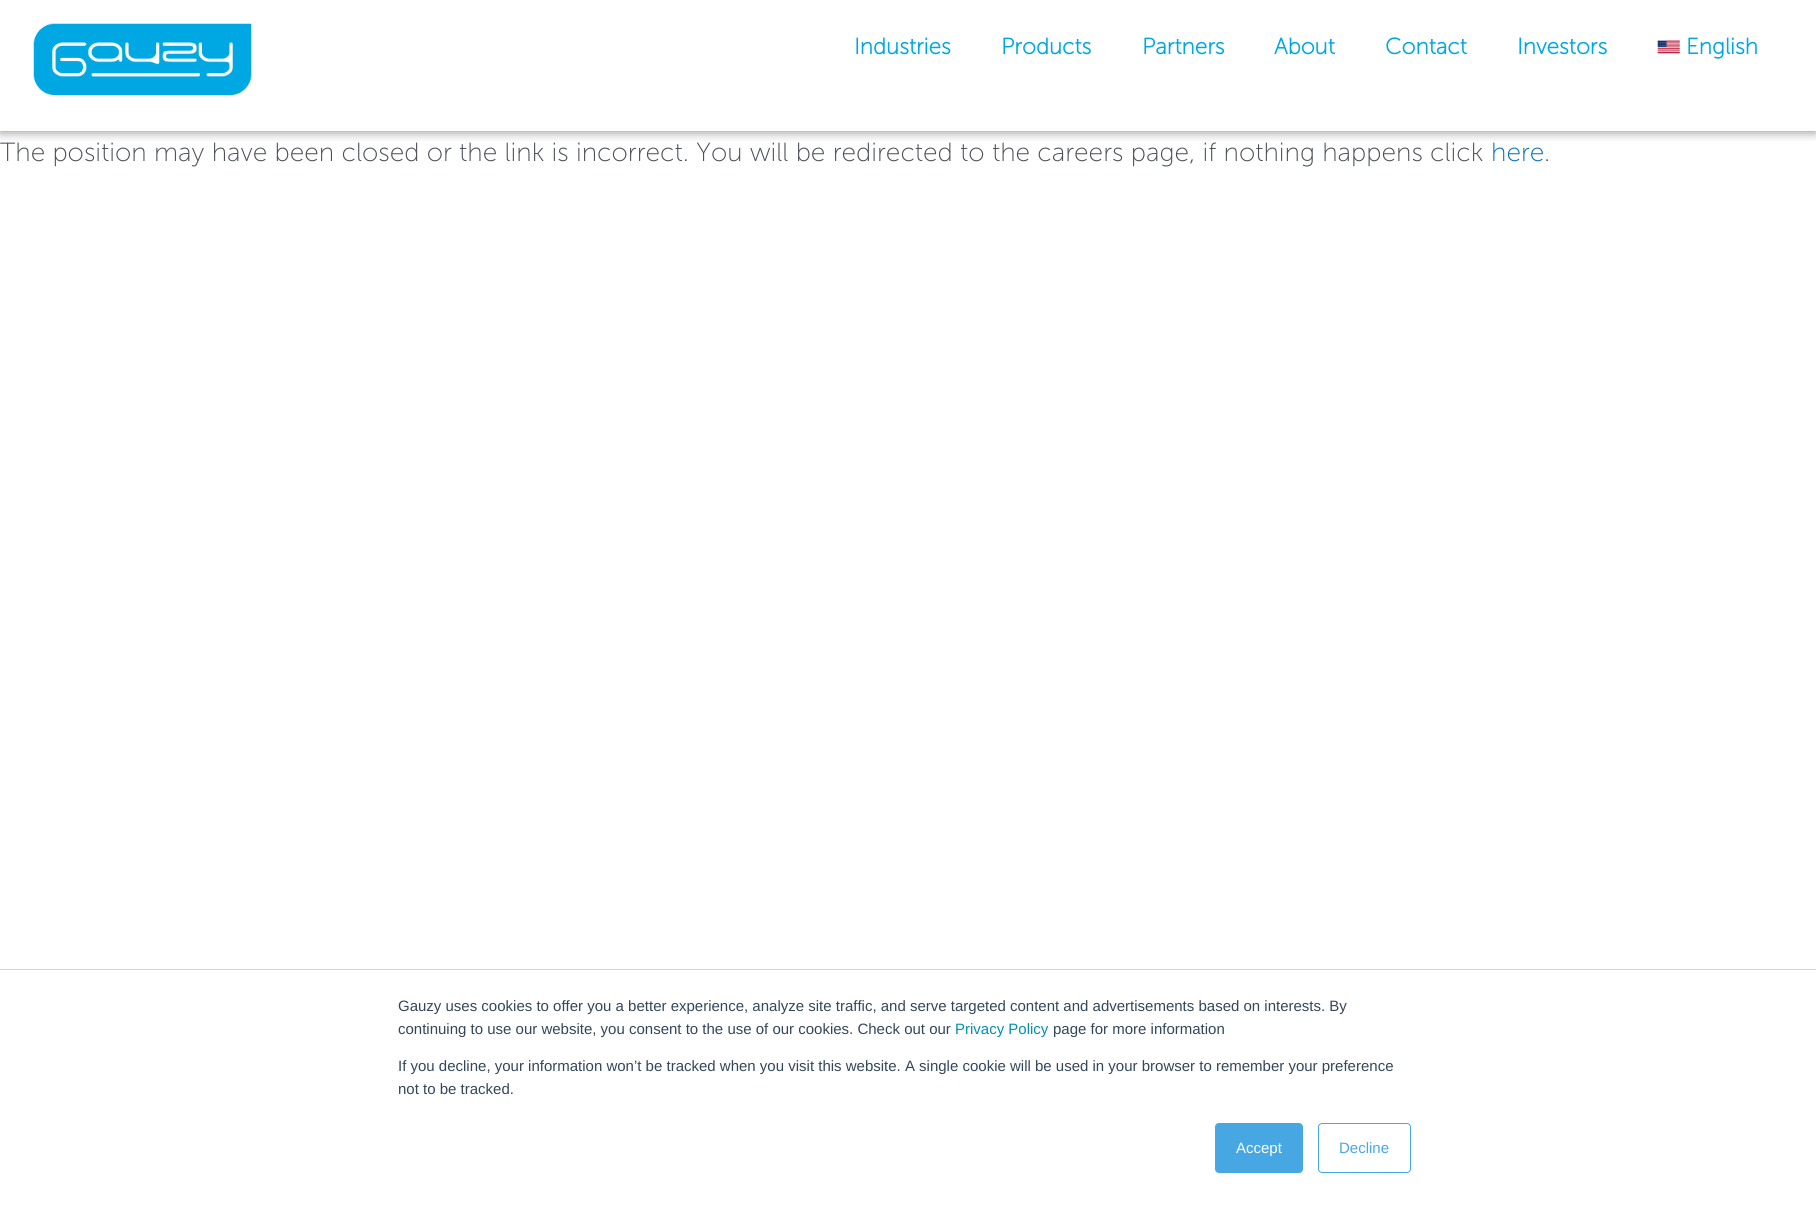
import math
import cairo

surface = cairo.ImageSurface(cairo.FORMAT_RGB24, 1816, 1205)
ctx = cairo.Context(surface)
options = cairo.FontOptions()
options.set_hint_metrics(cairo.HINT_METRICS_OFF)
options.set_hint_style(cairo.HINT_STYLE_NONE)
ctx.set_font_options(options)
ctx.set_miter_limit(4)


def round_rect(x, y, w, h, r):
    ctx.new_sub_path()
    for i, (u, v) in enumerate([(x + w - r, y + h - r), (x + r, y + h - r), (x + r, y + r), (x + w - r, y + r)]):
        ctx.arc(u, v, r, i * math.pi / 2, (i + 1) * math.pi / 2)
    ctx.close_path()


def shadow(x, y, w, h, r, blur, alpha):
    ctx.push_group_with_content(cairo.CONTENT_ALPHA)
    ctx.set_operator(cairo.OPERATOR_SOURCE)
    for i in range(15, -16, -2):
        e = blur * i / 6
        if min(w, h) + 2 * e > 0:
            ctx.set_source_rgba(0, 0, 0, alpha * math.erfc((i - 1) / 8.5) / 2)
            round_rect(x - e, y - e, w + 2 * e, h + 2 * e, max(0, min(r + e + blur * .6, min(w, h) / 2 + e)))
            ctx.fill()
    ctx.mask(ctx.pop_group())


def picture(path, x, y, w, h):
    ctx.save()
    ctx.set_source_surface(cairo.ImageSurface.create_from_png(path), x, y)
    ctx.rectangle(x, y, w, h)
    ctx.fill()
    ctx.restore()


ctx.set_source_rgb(1, 1, 1)
ctx.paint()
ctx.save()
ctx.rectangle(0, 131, 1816, 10)
ctx.clip()
ctx.set_source_rgb(0, 0, 0)
shadow(0, 0, 1816, 131, 0, 6, 0.5)
ctx.restore()
picture("img1.png", 33, 23, 219, 72)
ctx.select_font_face("Museo Sans", cairo.FONT_SLANT_NORMAL, cairo.FONT_WEIGHT_BOLD)
ctx.set_font_size(22.5)
ctx.set_source_rgb(0, 0.659, 0.89)
ctx.move_to(854, 54)
ctx.show_text("Industries")
ctx.move_to(1001, 54)
ctx.show_text("Products")
ctx.move_to(1142, 54)
ctx.show_text("Partners")
ctx.move_to(1274, 54)
ctx.show_text("About")
ctx.move_to(1385, 54)
ctx.show_text("Contact")
ctx.move_to(1517, 54)
ctx.show_text("Investors")
picture("img2.png", 1657, 40, 23, 14)
ctx.move_to(1686, 54)
ctx.show_text("English")
ctx.select_font_face("Museo Sans ExtraLight")
ctx.set_font_size(26.25)
ctx.set_source_rgb(0.294, 0.31, 0.345)
ctx.move_to(0, 161)
ctx.show_text("The position may have been closed or the link is incorrect. You will be redirected to the careers page, if nothing happens click")
ctx.set_source_rgb(0.004, 0.439, 0.725)
ctx.move_to(1491, 161)
ctx.show_text("here")
ctx.set_source_rgb(0.294, 0.31, 0.345)
ctx.move_to(1544, 161)
ctx.show_text(".")
ctx.set_source_rgb(0.796, 0.839, 0.886)
ctx.rectangle(0, 969, 1816, 1)
ctx.fill()
ctx.select_font_face("Liberation Sans")
ctx.set_font_size(15)
ctx.set_source_rgb(0.2, 0.278, 0.357)
ctx.move_to(398, 1011)
ctx.show_text("Gauzy uses cookies to offer you a better experience, analyze site traffic, and serve targeted content and advertisements based on interests. By")
ctx.move_to(398, 1034)
ctx.show_text("continuing to use our website, you consent to the use of our cookies. Check out our")
ctx.set_source_rgb(0, 0.569, 0.682)
ctx.move_to(955, 1034)
ctx.show_text("Privacy Policy")
ctx.set_source_rgb(0.2, 0.278, 0.357)
ctx.move_to(1053, 1034)
ctx.show_text("page for more information")
ctx.move_to(398, 1071)
ctx.show_text("If you decline, your information won’t be tracked when you visit this website. A single cookie will be used in your browser to remember your preference")
ctx.move_to(398, 1094)
ctx.show_text("not to be tracked.")
ctx.set_source_rgb(0.278, 0.655, 0.89)
round_rect(1215.5, 1123.5, 87, 49, 3.5)
ctx.fill_preserve()
ctx.set_line_width(1)
ctx.stroke()
ctx.set_source_rgb(1, 1, 1)
ctx.move_to(1236, 1153)
ctx.show_text("Accept")
round_rect(1318.5, 1123.5, 92, 49, 3.5)
ctx.set_source_rgb(0.278, 0.655, 0.89)
ctx.stroke()
ctx.move_to(1339, 1153)
ctx.show_text("Decline")
surface.write_to_png("page.png")
